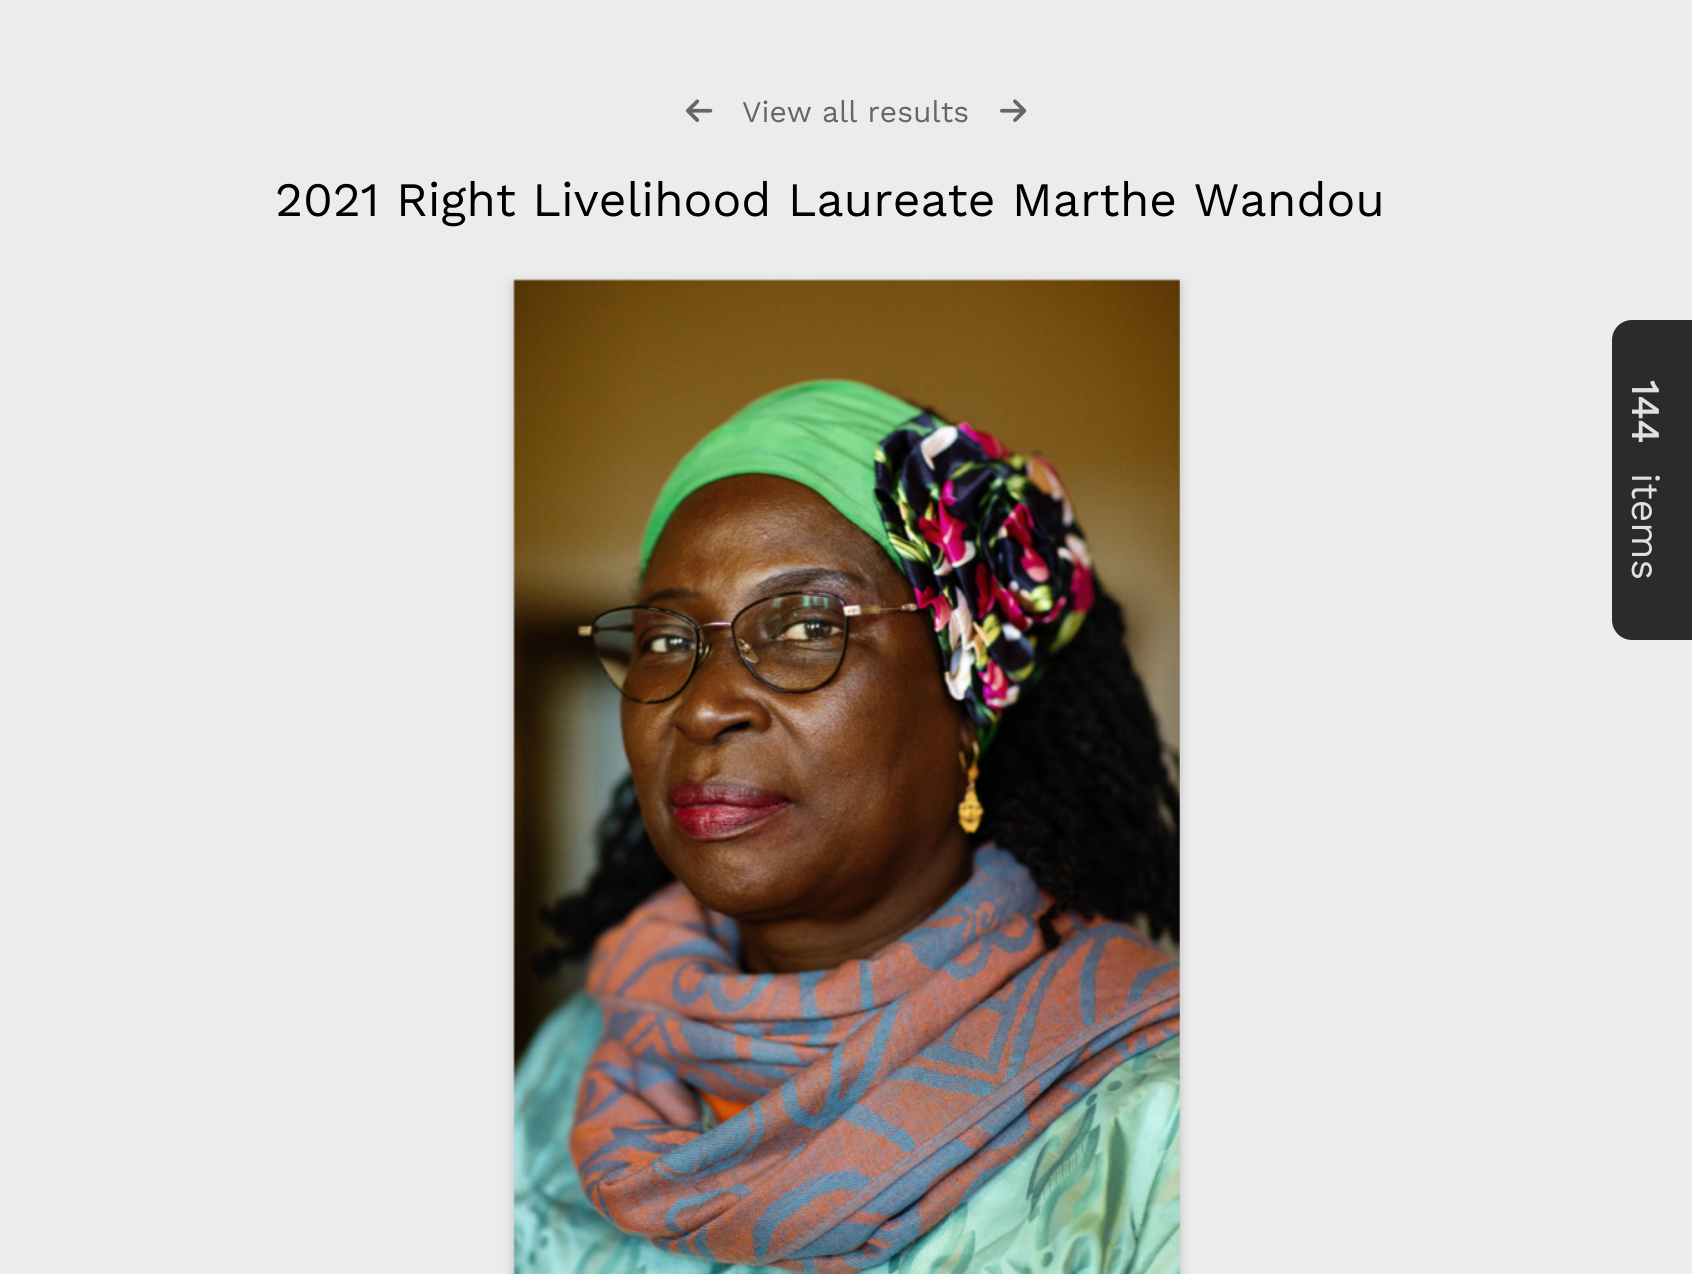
import math
import cairo

surface = cairo.ImageSurface(cairo.FORMAT_RGB24, 1692, 1274)
ctx = cairo.Context(surface)
options = cairo.FontOptions()
options.set_hint_metrics(cairo.HINT_METRICS_OFF)
options.set_hint_style(cairo.HINT_STYLE_NONE)
ctx.set_font_options(options)
ctx.set_miter_limit(4)


def round_rect(x, y, w, h, r):
    ctx.new_sub_path()
    for i, (u, v) in enumerate([(x + w - r, y + h - r), (x + r, y + h - r), (x + r, y + r), (x + w - r, y + r)]):
        ctx.arc(u, v, r, i * math.pi / 2, (i + 1) * math.pi / 2)
    ctx.close_path()


def shadow(x, y, w, h, r, blur, alpha):
    ctx.push_group_with_content(cairo.CONTENT_ALPHA)
    ctx.set_operator(cairo.OPERATOR_SOURCE)
    for i in range(15, -16, -2):
        e = blur * i / 6
        if min(w, h) + 2 * e > 0:
            ctx.set_source_rgba(0, 0, 0, alpha * math.erfc((i - 1) / 8.5) / 2)
            round_rect(x - e, y - e, w + 2 * e, h + 2 * e, max(0, min(r + e + blur * .6, min(w, h) / 2 + e)))
            ctx.fill()
    ctx.mask(ctx.pop_group())


def picture(path, x, y, w, h):
    ctx.save()
    ctx.set_source_surface(cairo.ImageSurface.create_from_png(path), x, y)
    ctx.rectangle(x, y, w, h)
    ctx.fill()
    ctx.restore()


ctx.set_source_rgb(0.925, 0.925, 0.925)
ctx.paint()
picture("img1.png", 686, 99, 27, 23)
ctx.select_font_face("Work Sans")
ctx.set_font_size(30)
ctx.set_source_rgb(0.4, 0.4, 0.4)
ctx.move_to(742, 122)
ctx.show_text("View all results")
picture("img2.png", 1000, 99, 27, 23)
ctx.set_font_size(48)
ctx.set_source_rgb(0, 0, 0)
ctx.move_to(275, 216)
ctx.show_text("2021 Right Livelihood Laureate Marthe Wandou")
ctx.set_source_rgb(0, 0, 0)
shadow(514, 284, 666, 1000, 0, 6, 0.2)
picture("img3.png", 513, 279, 667, 995)
ctx.set_source_rgb(0.169, 0.169, 0.169)
ctx.new_path()
ctx.move_to(1632, 320)
ctx.line_to(1692, 320)
ctx.line_to(1692, 640)
ctx.line_to(1632, 640)
ctx.curve_to(1621, 640, 1612, 631, 1612, 620)
ctx.line_to(1612, 340)
ctx.curve_to(1612, 329, 1621, 320, 1632, 320)
ctx.close_path()
ctx.fill()
ctx.select_font_face("Work Sans", cairo.FONT_SLANT_NORMAL, cairo.FONT_WEIGHT_BOLD)
ctx.set_font_size(39)
ctx.set_source_rgb(0.878, 0.878, 0.878)
ctx.save()
ctx.translate(1632, 380)
ctx.rotate(90 * math.pi / 180)
ctx.move_to(0, 0)
ctx.show_text("144")
ctx.restore()
ctx.select_font_face("Work Sans")
ctx.save()
ctx.translate(1632, 473)
ctx.rotate(90 * math.pi / 180)
ctx.move_to(0, 0)
ctx.show_text("items")
ctx.restore()
surface.write_to_png("page.png")
